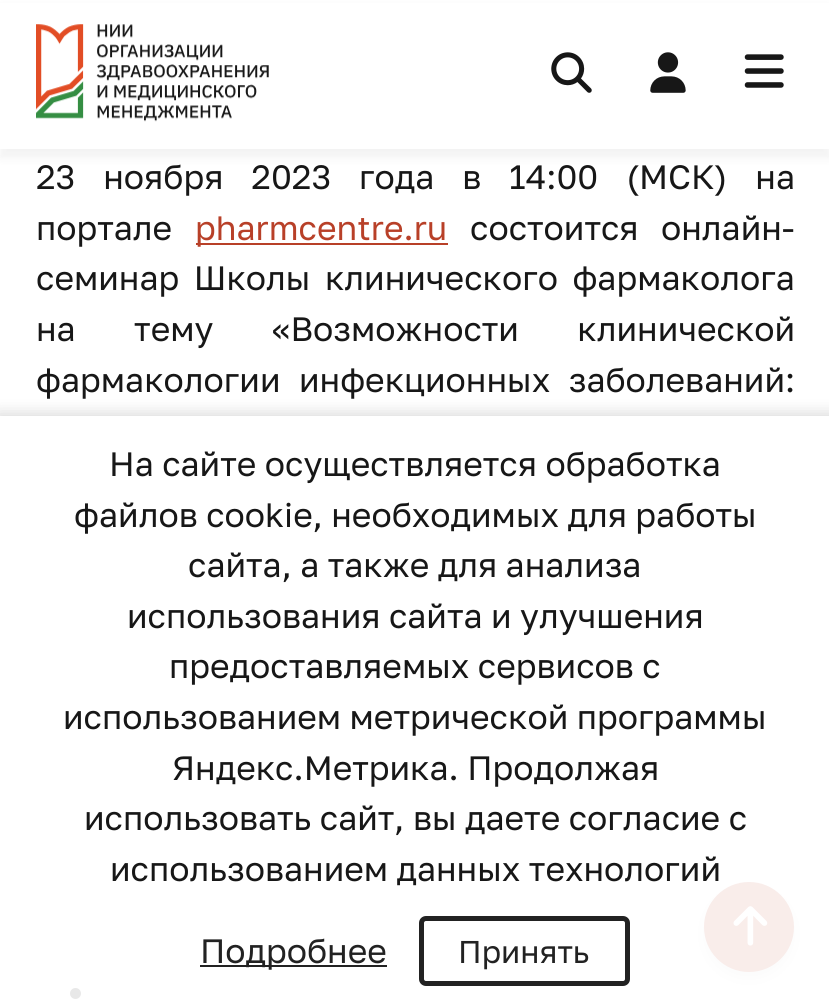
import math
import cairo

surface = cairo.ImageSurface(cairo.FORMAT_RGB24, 829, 1007)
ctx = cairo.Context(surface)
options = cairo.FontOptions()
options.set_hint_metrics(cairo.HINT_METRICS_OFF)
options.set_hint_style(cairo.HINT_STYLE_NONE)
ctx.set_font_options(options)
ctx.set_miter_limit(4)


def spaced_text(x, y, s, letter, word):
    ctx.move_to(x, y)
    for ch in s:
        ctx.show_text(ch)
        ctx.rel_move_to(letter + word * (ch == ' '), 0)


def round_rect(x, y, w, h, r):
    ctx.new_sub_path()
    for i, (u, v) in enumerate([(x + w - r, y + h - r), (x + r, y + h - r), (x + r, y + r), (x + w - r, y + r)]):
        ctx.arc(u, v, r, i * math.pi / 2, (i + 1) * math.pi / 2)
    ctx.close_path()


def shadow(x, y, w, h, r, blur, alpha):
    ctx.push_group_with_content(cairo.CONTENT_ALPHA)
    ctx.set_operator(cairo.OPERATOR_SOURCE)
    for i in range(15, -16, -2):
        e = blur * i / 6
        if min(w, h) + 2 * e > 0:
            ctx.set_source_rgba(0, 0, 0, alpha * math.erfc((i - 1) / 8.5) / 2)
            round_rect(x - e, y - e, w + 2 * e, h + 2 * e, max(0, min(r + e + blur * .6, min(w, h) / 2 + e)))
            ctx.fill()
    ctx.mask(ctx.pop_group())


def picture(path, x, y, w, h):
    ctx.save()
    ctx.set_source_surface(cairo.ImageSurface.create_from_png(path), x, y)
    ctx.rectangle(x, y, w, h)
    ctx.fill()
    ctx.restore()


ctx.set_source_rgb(1, 1, 1)
ctx.paint()
ctx.set_source_rgb(0, 0, 0)
shadow(0, 7, 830, 151, 0, 4.5, 0.05)
ctx.set_source_rgb(1, 1, 1)
ctx.rectangle(0, 3, 829, 146)
ctx.fill()
picture("img1.png", 36, 24, 233, 98)
picture("img2.png", 551, 52, 41, 41)
picture("img3.png", 650, 52, 36, 41)
picture("img4.png", 744, 54, 40, 34)
ctx.select_font_face("Golos Text")
ctx.set_font_size(33.75)
ctx.set_source_rgb(0.09, 0.09, 0.09)
spaced_text(36, 189, "23 ноября 2023 года в 14:00 (МСК) на", 0, 19.5)
ctx.move_to(36, 240)
ctx.show_text("портале")
ctx.set_source_rgb(0.722, 0.251, 0.157)
ctx.rectangle(196, 243, 252, 2)
ctx.fill()
ctx.move_to(195, 240)
ctx.show_text("pharmcentre.ru")
ctx.set_source_rgb(0.09, 0.09, 0.09)
spaced_text(470, 240, "состоится онлайн-", 0, 14)
spaced_text(36, 290, "семинар Школы клинического фармаколога", 0, 6)
spaced_text(36, 341, "на тему «Возможности клинической", 0, 50)
spaced_text(36, 392, "фармакологии инфекционных заболеваний:", 0, 10)
ctx.new_path()
ctx.arc(75.5, 993.5, 5.5, 0, 2 * math.pi)
ctx.fill()
ctx.set_source_rgb(0, 0, 0)
shadow(704, 889, 90, 90, 45, 5.5, 0.15)
ctx.set_source_rgb(0.761, 0.263, 0.165)
ctx.arc(749, 927, 44, 0, 2 * math.pi)
ctx.fill_preserve()
ctx.stroke()
picture("img5.png", 733, 906, 35, 40)
ctx.save()
ctx.set_fill_rule(cairo.FILL_RULE_EVEN_ODD)
ctx.new_path()
ctx.move_to(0, 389)
ctx.line_to(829, 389)
ctx.line_to(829, 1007)
ctx.line_to(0, 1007)
ctx.close_path()
ctx.move_to(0, 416)
ctx.line_to(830, 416)
ctx.line_to(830, 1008)
ctx.line_to(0, 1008)
ctx.close_path()
ctx.clip()
ctx.set_source_rgb(0, 0, 0)
shadow(-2, 414, 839, 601, 0, 8, 0.16)
ctx.restore()
ctx.set_source_rgba(1, 1, 1, 0.9)
ctx.rectangle(0, 416, 829, 583)
ctx.fill()
ctx.set_source_rgb(0.09, 0.09, 0.09)
ctx.move_to(109, 476)
ctx.show_text("На сайте осуществляется обработка")
ctx.move_to(74, 527)
ctx.show_text("файлов cookie, необходимых для работы")
ctx.move_to(188, 577)
ctx.show_text("сайта, а также для анализа")
ctx.move_to(127, 628)
ctx.show_text("использования сайта и улучшения")
ctx.move_to(169, 678)
ctx.show_text("предоставляемых сервисов с")
ctx.move_to(63, 729)
ctx.show_text("использованием метрической программы")
ctx.move_to(172, 780)
ctx.show_text("Яндекс.Метрика. Продолжая")
ctx.move_to(84, 830)
ctx.show_text("использовать сайт, вы даете согласие с")
ctx.move_to(110, 881)
ctx.show_text("использованием данных технологий")
ctx.set_source_rgb(0.133, 0.133, 0.133)
ctx.rectangle(200, 965, 187, 2)
ctx.fill()
ctx.move_to(200, 963)
ctx.show_text("Подробнее")
round_rect(421.5, 918.5, 206, 65, 4.5)
ctx.set_line_width(5)
ctx.stroke()
ctx.set_font_size(31.5)
ctx.move_to(458, 963)
ctx.show_text("Принять")
surface.write_to_png("page.png")
